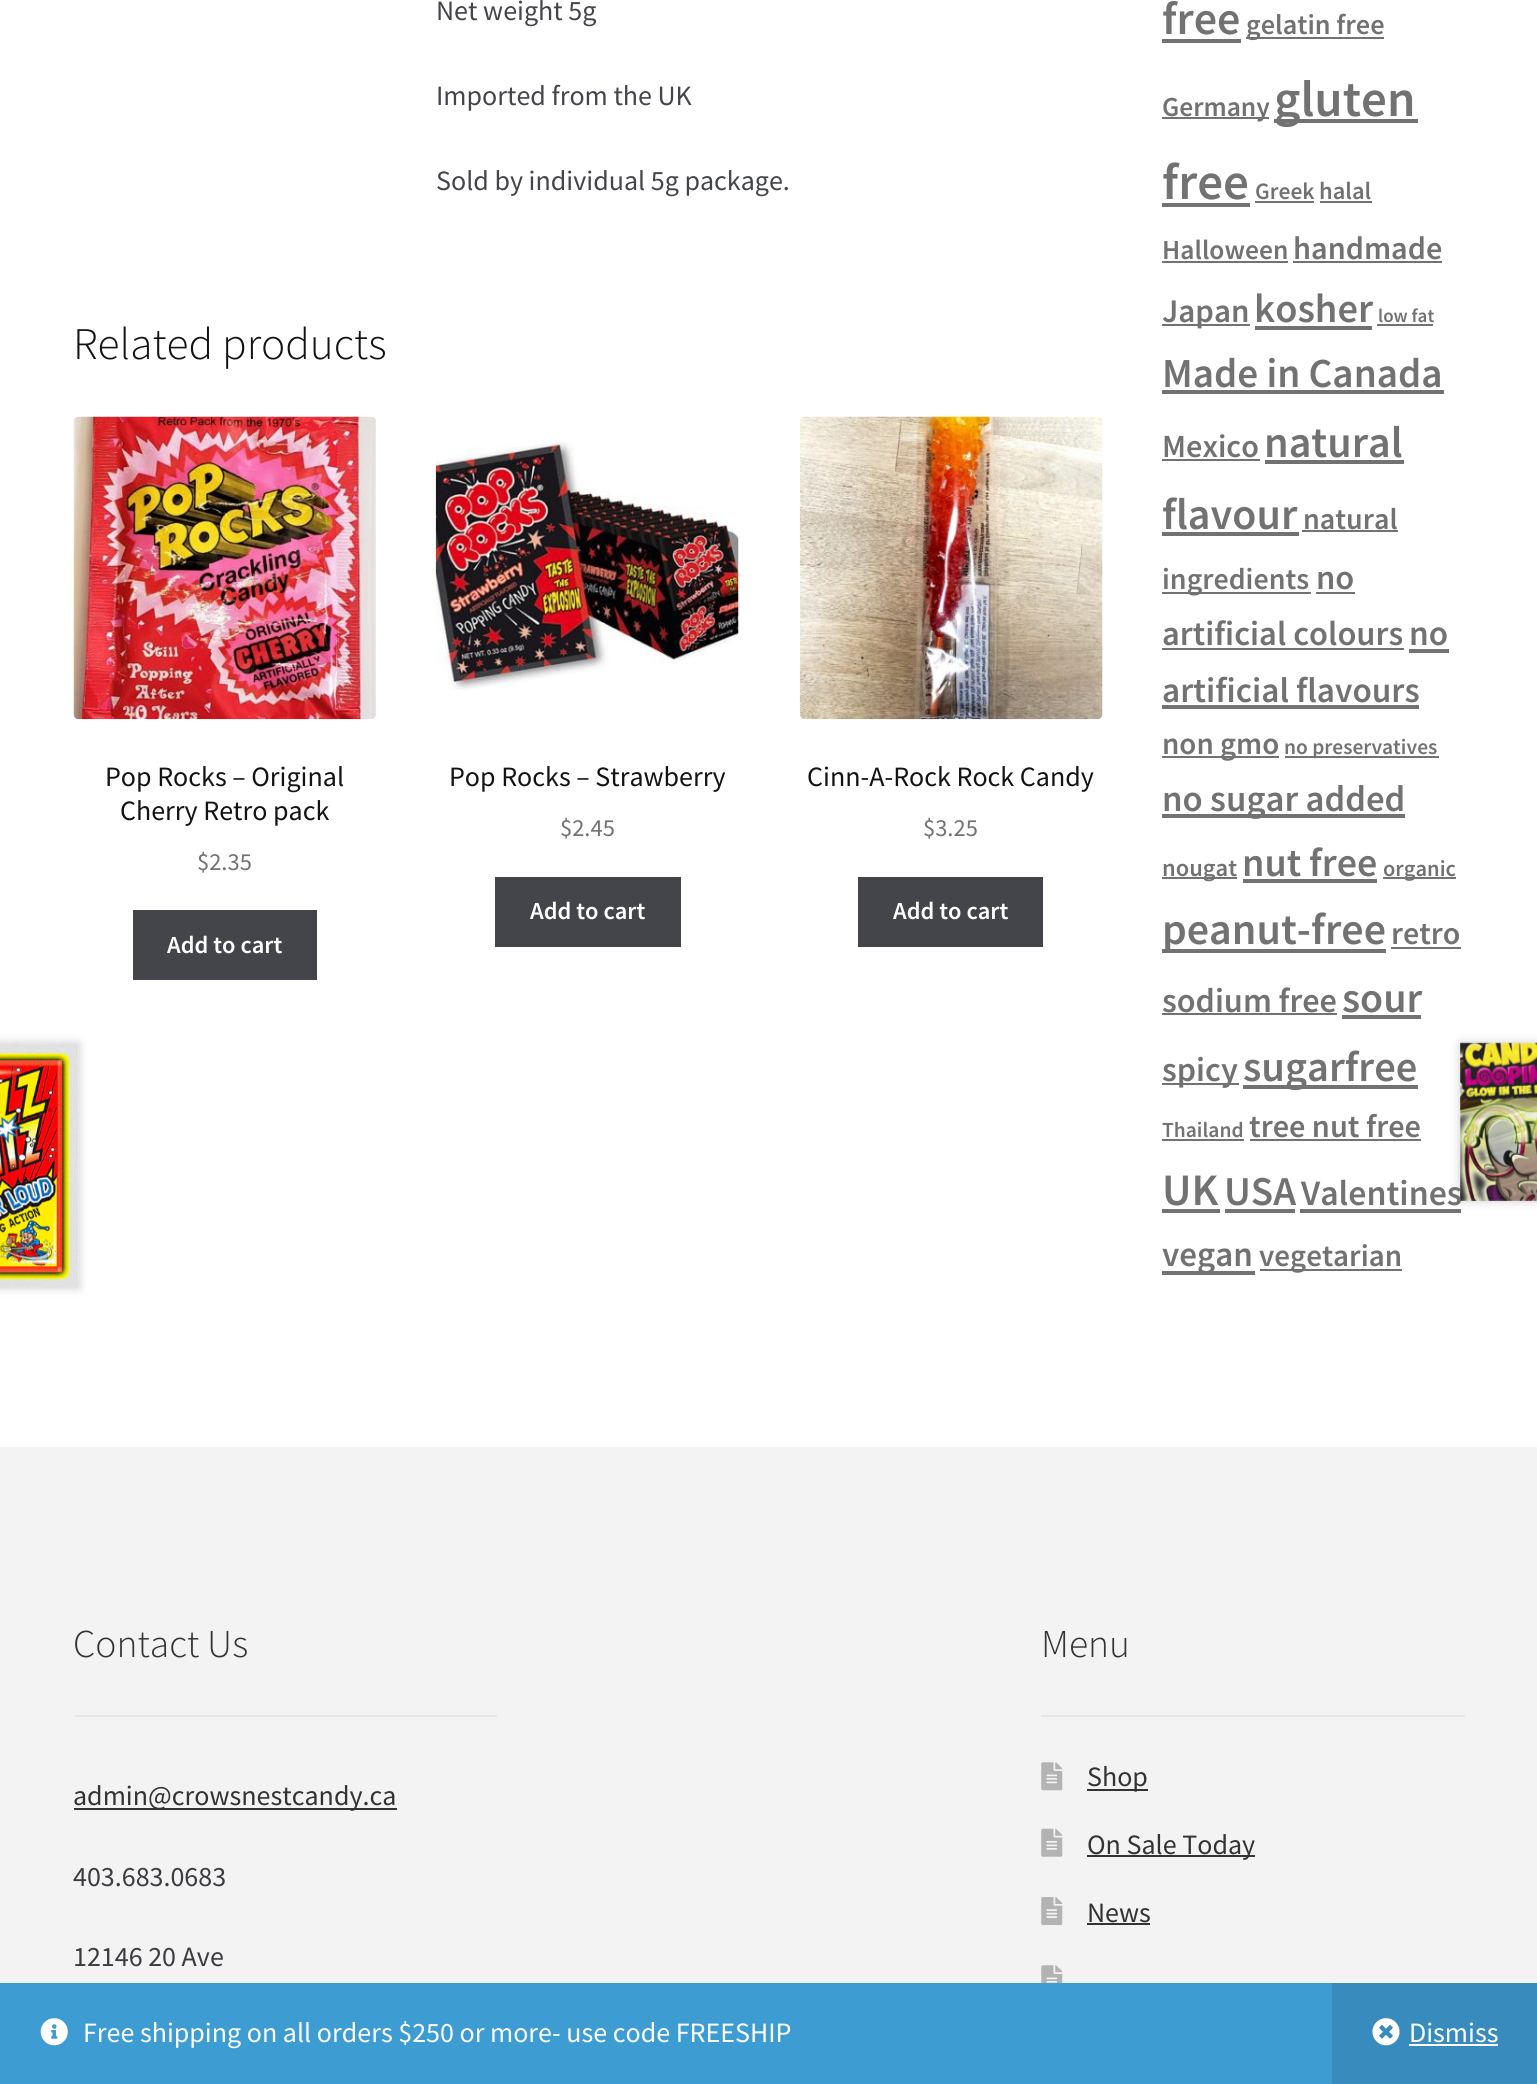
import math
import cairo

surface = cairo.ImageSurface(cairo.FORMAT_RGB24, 1537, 2084)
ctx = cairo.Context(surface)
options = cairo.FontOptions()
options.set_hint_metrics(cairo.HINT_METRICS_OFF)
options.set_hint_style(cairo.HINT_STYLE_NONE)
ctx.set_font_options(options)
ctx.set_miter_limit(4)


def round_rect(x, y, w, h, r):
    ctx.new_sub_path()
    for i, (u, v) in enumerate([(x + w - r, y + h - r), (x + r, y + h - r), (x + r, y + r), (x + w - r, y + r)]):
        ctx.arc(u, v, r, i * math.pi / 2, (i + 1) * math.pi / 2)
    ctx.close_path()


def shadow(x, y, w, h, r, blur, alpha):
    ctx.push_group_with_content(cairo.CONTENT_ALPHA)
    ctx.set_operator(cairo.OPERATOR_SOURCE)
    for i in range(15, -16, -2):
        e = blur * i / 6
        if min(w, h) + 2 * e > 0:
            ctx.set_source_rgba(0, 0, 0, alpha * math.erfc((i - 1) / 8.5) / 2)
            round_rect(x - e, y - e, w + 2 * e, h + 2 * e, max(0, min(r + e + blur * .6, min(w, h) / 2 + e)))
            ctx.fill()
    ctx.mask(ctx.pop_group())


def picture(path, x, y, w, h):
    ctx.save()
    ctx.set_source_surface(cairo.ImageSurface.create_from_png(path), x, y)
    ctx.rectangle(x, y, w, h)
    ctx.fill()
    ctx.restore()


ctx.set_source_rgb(1, 1, 1)
ctx.paint()
ctx.select_font_face("Source Sans Pro")
ctx.set_font_size(28)
ctx.set_source_rgb(0.263, 0.271, 0.294)
ctx.move_to(436, 20)
ctx.show_text("Net weight 5g")
ctx.move_to(436, 105)
ctx.show_text("Imported from the UK")
ctx.move_to(436, 190)
ctx.show_text("Sold by individual 5g package.")
ctx.select_font_face("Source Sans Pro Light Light")
ctx.set_font_size(45.25)
ctx.set_source_rgb(0.075, 0.075, 0.082)
ctx.move_to(73, 359)
ctx.show_text("Related products")
picture("img1.png", 73, 416, 303, 304)
ctx.select_font_face("Source Sans Pro")
ctx.set_font_size(28)
ctx.move_to(105, 786)
ctx.show_text("Pop Rocks – Original")
ctx.move_to(120, 820)
ctx.show_text("Cherry Retro pack")
ctx.set_font_size(24.5)
ctx.set_source_rgb(0.447, 0.447, 0.447)
ctx.move_to(197, 870)
ctx.show_text("$2.35")
ctx.set_source_rgb(0.263, 0.271, 0.294)
ctx.rectangle(133, 910, 184, 70)
ctx.fill()
ctx.select_font_face("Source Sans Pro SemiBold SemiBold")
ctx.set_source_rgb(1, 1, 1)
ctx.move_to(167, 953)
ctx.show_text("Add to cart")
picture("img2.png", 435, 439, 304, 251)
ctx.select_font_face("Source Sans Pro")
ctx.set_font_size(28)
ctx.set_source_rgb(0.075, 0.075, 0.082)
ctx.move_to(449, 786)
ctx.show_text("Pop Rocks – Strawberry")
ctx.set_font_size(24.5)
ctx.set_source_rgb(0.447, 0.447, 0.447)
ctx.move_to(560, 836)
ctx.show_text("$2.45")
ctx.set_source_rgb(0.263, 0.271, 0.294)
ctx.rectangle(495, 877, 186, 70)
ctx.fill()
ctx.select_font_face("Source Sans Pro SemiBold SemiBold")
ctx.set_source_rgb(1, 1, 1)
ctx.move_to(530, 919)
ctx.show_text("Add to cart")
picture("img3.png", 799, 416, 304, 304)
ctx.select_font_face("Source Sans Pro")
ctx.set_font_size(28)
ctx.set_source_rgb(0.075, 0.075, 0.082)
ctx.move_to(807, 786)
ctx.show_text("Cinn-A-Rock Rock Candy")
ctx.set_font_size(24.5)
ctx.set_source_rgb(0.447, 0.447, 0.447)
ctx.move_to(923, 836)
ctx.show_text("$3.25")
ctx.set_source_rgb(0.263, 0.271, 0.294)
ctx.rectangle(858, 877, 185, 70)
ctx.fill()
ctx.select_font_face("Source Sans Pro SemiBold SemiBold")
ctx.set_source_rgb(1, 1, 1)
ctx.move_to(893, 919)
ctx.show_text("Add to cart")
ctx.set_source_rgb(0, 0, 0)
shadow(-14, 1043, 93, 245, 0, 4.5, 0.2)
ctx.set_source_rgb(1, 1, 1)
ctx.rectangle(0, 1043, 79, 245)
ctx.fill()
picture("img4.png", 0, 1043, 79, 245)
ctx.set_source_rgb(0.447, 0.447, 0.447)
ctx.rectangle(1300, 1209, 161, 4)
ctx.fill()
ctx.set_source_rgb(0, 0, 0)
shadow(1460, 1043, 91, 158, 0, 4.5, 0.2)
ctx.set_font_size(35.75)
ctx.set_source_rgb(0.447, 0.447, 0.447)
ctx.move_to(1301, 1205)
ctx.show_text("Valentines")
picture("img5.png", 1460, 1042, 77, 159)
ctx.set_font_size(46)
ctx.move_to(1162, 34)
ctx.show_text("free")
ctx.rectangle(1162, 39, 79, 4)
ctx.fill()
ctx.rectangle(1246, 37, 138, 2)
ctx.fill()
ctx.set_font_size(28.25)
ctx.move_to(1246, 34)
ctx.show_text("gelatin free")
ctx.rectangle(1162, 117, 107, 2)
ctx.fill()
ctx.set_font_size(27.5)
ctx.move_to(1162, 116)
ctx.show_text("Germany")
ctx.rectangle(1274, 119, 144, 4)
ctx.fill()
ctx.set_font_size(51)
ctx.move_to(1274, 116)
ctx.show_text("gluten")
ctx.move_to(1162, 199)
ctx.show_text("free")
ctx.rectangle(1162, 203, 88, 4)
ctx.fill()
ctx.set_font_size(23.5)
ctx.move_to(1255, 199)
ctx.show_text("Greek")
ctx.rectangle(1255, 201, 59, 2)
ctx.fill()
ctx.set_font_size(24.5)
ctx.move_to(1319, 199)
ctx.show_text("halal")
ctx.rectangle(1320, 201, 52, 2)
ctx.fill()
ctx.set_font_size(27.5)
ctx.move_to(1162, 259)
ctx.show_text("Halloween")
ctx.rectangle(1162, 261, 126, 2)
ctx.fill()
ctx.set_font_size(32.25)
ctx.move_to(1293, 259)
ctx.show_text("handmade")
ctx.rectangle(1293, 261, 149, 2)
ctx.fill()
ctx.rectangle(1162, 324, 88, 2)
ctx.fill()
ctx.set_font_size(33)
ctx.move_to(1162, 322)
ctx.show_text("Japan")
ctx.set_font_size(40.5)
ctx.move_to(1254, 322)
ctx.show_text("kosher")
ctx.rectangle(1255, 326, 117, 4)
ctx.fill()
ctx.set_font_size(19)
ctx.move_to(1378, 322)
ctx.show_text("low fat")
ctx.rectangle(1377, 324, 56, 2)
ctx.fill()
ctx.set_font_size(41.25)
ctx.move_to(1162, 387)
ctx.show_text("Made in Canada")
ctx.rectangle(1162, 390, 282, 4)
ctx.fill()
ctx.set_font_size(32.25)
ctx.move_to(1162, 457)
ctx.show_text("Mexico")
ctx.rectangle(1162, 459, 98, 2)
ctx.fill()
ctx.set_font_size(44)
ctx.move_to(1264, 457)
ctx.show_text("natural")
ctx.rectangle(1265, 460, 139, 4)
ctx.fill()
ctx.move_to(1162, 529)
ctx.show_text("flavour")
ctx.rectangle(1162, 532, 137, 4)
ctx.fill()
ctx.set_font_size(30)
ctx.move_to(1303, 529)
ctx.show_text("natural")
ctx.rectangle(1302, 530, 96, 2)
ctx.fill()
ctx.rectangle(1162, 592, 149, 2)
ctx.fill()
ctx.move_to(1162, 589)
ctx.show_text("ingredients")
ctx.set_font_size(34.5)
ctx.move_to(1316, 589)
ctx.show_text("no")
ctx.rectangle(1316, 592, 39, 2)
ctx.fill()
ctx.move_to(1162, 645)
ctx.show_text("artificial colours")
ctx.rectangle(1162, 648, 242, 2)
ctx.fill()
ctx.set_font_size(35.25)
ctx.move_to(1409, 645)
ctx.show_text("no")
ctx.rectangle(1409, 649, 40, 4)
ctx.fill()
ctx.move_to(1162, 702)
ctx.show_text("artificial flavours")
ctx.rectangle(1162, 705, 257, 4)
ctx.fill()
ctx.rectangle(1162, 756, 117, 2)
ctx.fill()
ctx.set_font_size(31)
ctx.move_to(1162, 754)
ctx.show_text("non gmo")
ctx.rectangle(1285, 756, 154, 2)
ctx.fill()
ctx.set_font_size(21.5)
ctx.move_to(1284, 754)
ctx.show_text("no preservatives")
ctx.rectangle(1162, 814, 243, 4)
ctx.fill()
ctx.set_font_size(36.75)
ctx.move_to(1162, 811)
ctx.show_text("no sugar added")
ctx.rectangle(1162, 877, 75, 2)
ctx.fill()
ctx.set_font_size(24.5)
ctx.move_to(1162, 876)
ctx.show_text("nougat")
ctx.set_font_size(40)
ctx.move_to(1242, 876)
ctx.show_text("nut free")
ctx.rectangle(1243, 879, 134, 4)
ctx.fill()
ctx.rectangle(1383, 877, 73, 2)
ctx.fill()
ctx.set_font_size(22.5)
ctx.move_to(1383, 876)
ctx.show_text("organic")
ctx.rectangle(1162, 949, 224, 4)
ctx.fill()
ctx.set_font_size(44)
ctx.move_to(1162, 944)
ctx.show_text("peanut-free")
ctx.set_font_size(32)
ctx.move_to(1391, 944)
ctx.show_text("retro")
ctx.rectangle(1391, 947, 70, 2)
ctx.fill()
ctx.set_font_size(34.25)
ctx.move_to(1162, 1012)
ctx.show_text("sodium free")
ctx.rectangle(1162, 1013, 175, 2)
ctx.fill()
ctx.set_font_size(42)
ctx.move_to(1342, 1012)
ctx.show_text("sour")
ctx.rectangle(1342, 1015, 79, 4)
ctx.fill()
ctx.rectangle(1162, 1083, 77, 2)
ctx.fill()
ctx.set_font_size(34.25)
ctx.move_to(1162, 1081)
ctx.show_text("spicy")
ctx.rectangle(1243, 1085, 175, 4)
ctx.fill()
ctx.set_font_size(42.5)
ctx.move_to(1243, 1081)
ctx.show_text("sugarfree")
ctx.set_font_size(21.5)
ctx.move_to(1162, 1137)
ctx.show_text("Thailand")
ctx.rectangle(1162, 1139, 82, 2)
ctx.fill()
ctx.set_font_size(32.25)
ctx.move_to(1249, 1137)
ctx.show_text("tree nut free")
ctx.rectangle(1250, 1139, 171, 2)
ctx.fill()
ctx.set_font_size(45)
ctx.move_to(1162, 1205)
ctx.show_text("UK")
ctx.rectangle(1162, 1209, 58, 4)
ctx.fill()
ctx.set_font_size(41)
ctx.move_to(1224, 1205)
ctx.show_text("USA")
ctx.rectangle(1225, 1209, 70, 4)
ctx.fill()
ctx.rectangle(1162, 1271, 93, 4)
ctx.fill()
ctx.set_font_size(35)
ctx.move_to(1162, 1266)
ctx.show_text("vegan")
ctx.rectangle(1260, 1269, 142, 2)
ctx.fill()
ctx.set_font_size(31)
ctx.move_to(1259, 1266)
ctx.show_text("vegetarian")
ctx.set_source_rgb(0.953, 0.953, 0.953)
ctx.rectangle(0, 1447, 1537, 536)
ctx.fill()
ctx.set_source_rgb(0.906, 0.906, 0.906)
ctx.rectangle(74, 1715, 423, 2)
ctx.fill()
ctx.select_font_face("Source Sans Pro Light Light")
ctx.set_font_size(39.5)
ctx.set_source_rgb(0.2, 0.2, 0.2)
ctx.move_to(73, 1657)
ctx.show_text("Contact Us")
ctx.rectangle(74, 1808, 323, 2)
ctx.fill()
ctx.select_font_face("Source Sans Pro")
ctx.set_font_size(28)
ctx.move_to(73, 1805)
ctx.show_text("admin@crowsnestcandy.ca")
ctx.set_source_rgb(0.231, 0.235, 0.247)
ctx.move_to(73, 1886)
ctx.show_text("403.683.0683")
ctx.move_to(73, 1966)
ctx.show_text("12146 20 Ave")
ctx.set_source_rgb(0.906, 0.906, 0.906)
ctx.rectangle(1041, 1715, 424, 2)
ctx.fill()
ctx.select_font_face("Source Sans Pro Light Light")
ctx.set_font_size(39.5)
ctx.set_source_rgb(0.2, 0.2, 0.2)
ctx.move_to(1041, 1657)
ctx.show_text("Menu")
picture("img6.png", 1041, 1762, 22, 29)
ctx.rectangle(1087, 1789, 61, 2)
ctx.fill()
ctx.select_font_face("Source Sans Pro")
ctx.set_font_size(28)
ctx.move_to(1087, 1786)
ctx.show_text("Shop")
picture("img7.png", 1041, 1828, 22, 29)
ctx.rectangle(1087, 1855, 168, 2)
ctx.fill()
ctx.move_to(1087, 1854)
ctx.show_text("On Sale Today")
picture("img8.png", 1041, 1897, 22, 28)
ctx.move_to(1087, 1922)
ctx.show_text("News")
ctx.rectangle(1087, 1923, 63, 2)
ctx.fill()
picture("img9.png", 1041, 1965, 22, 18)
ctx.set_source_rgb(0.239, 0.612, 0.824)
ctx.rectangle(0, 1983, 1332, 101)
ctx.fill()
picture("img10.png", 40, 2018, 28, 28)
ctx.set_source_rgb(1, 1, 1)
ctx.move_to(83, 2042)
ctx.show_text("Free shipping on all orders $250 or more- use code FREESHIP")
ctx.set_source_rgb(0.216, 0.549, 0.741)
ctx.rectangle(1332, 1983, 205, 101)
ctx.fill()
picture("img11.png", 1372, 2018, 28, 28)
ctx.set_source_rgb(1, 1, 1)
ctx.move_to(1409, 2042)
ctx.show_text("Dismiss")
ctx.rectangle(1409, 2044, 89, 2)
ctx.fill()
surface.write_to_png("page.png")
